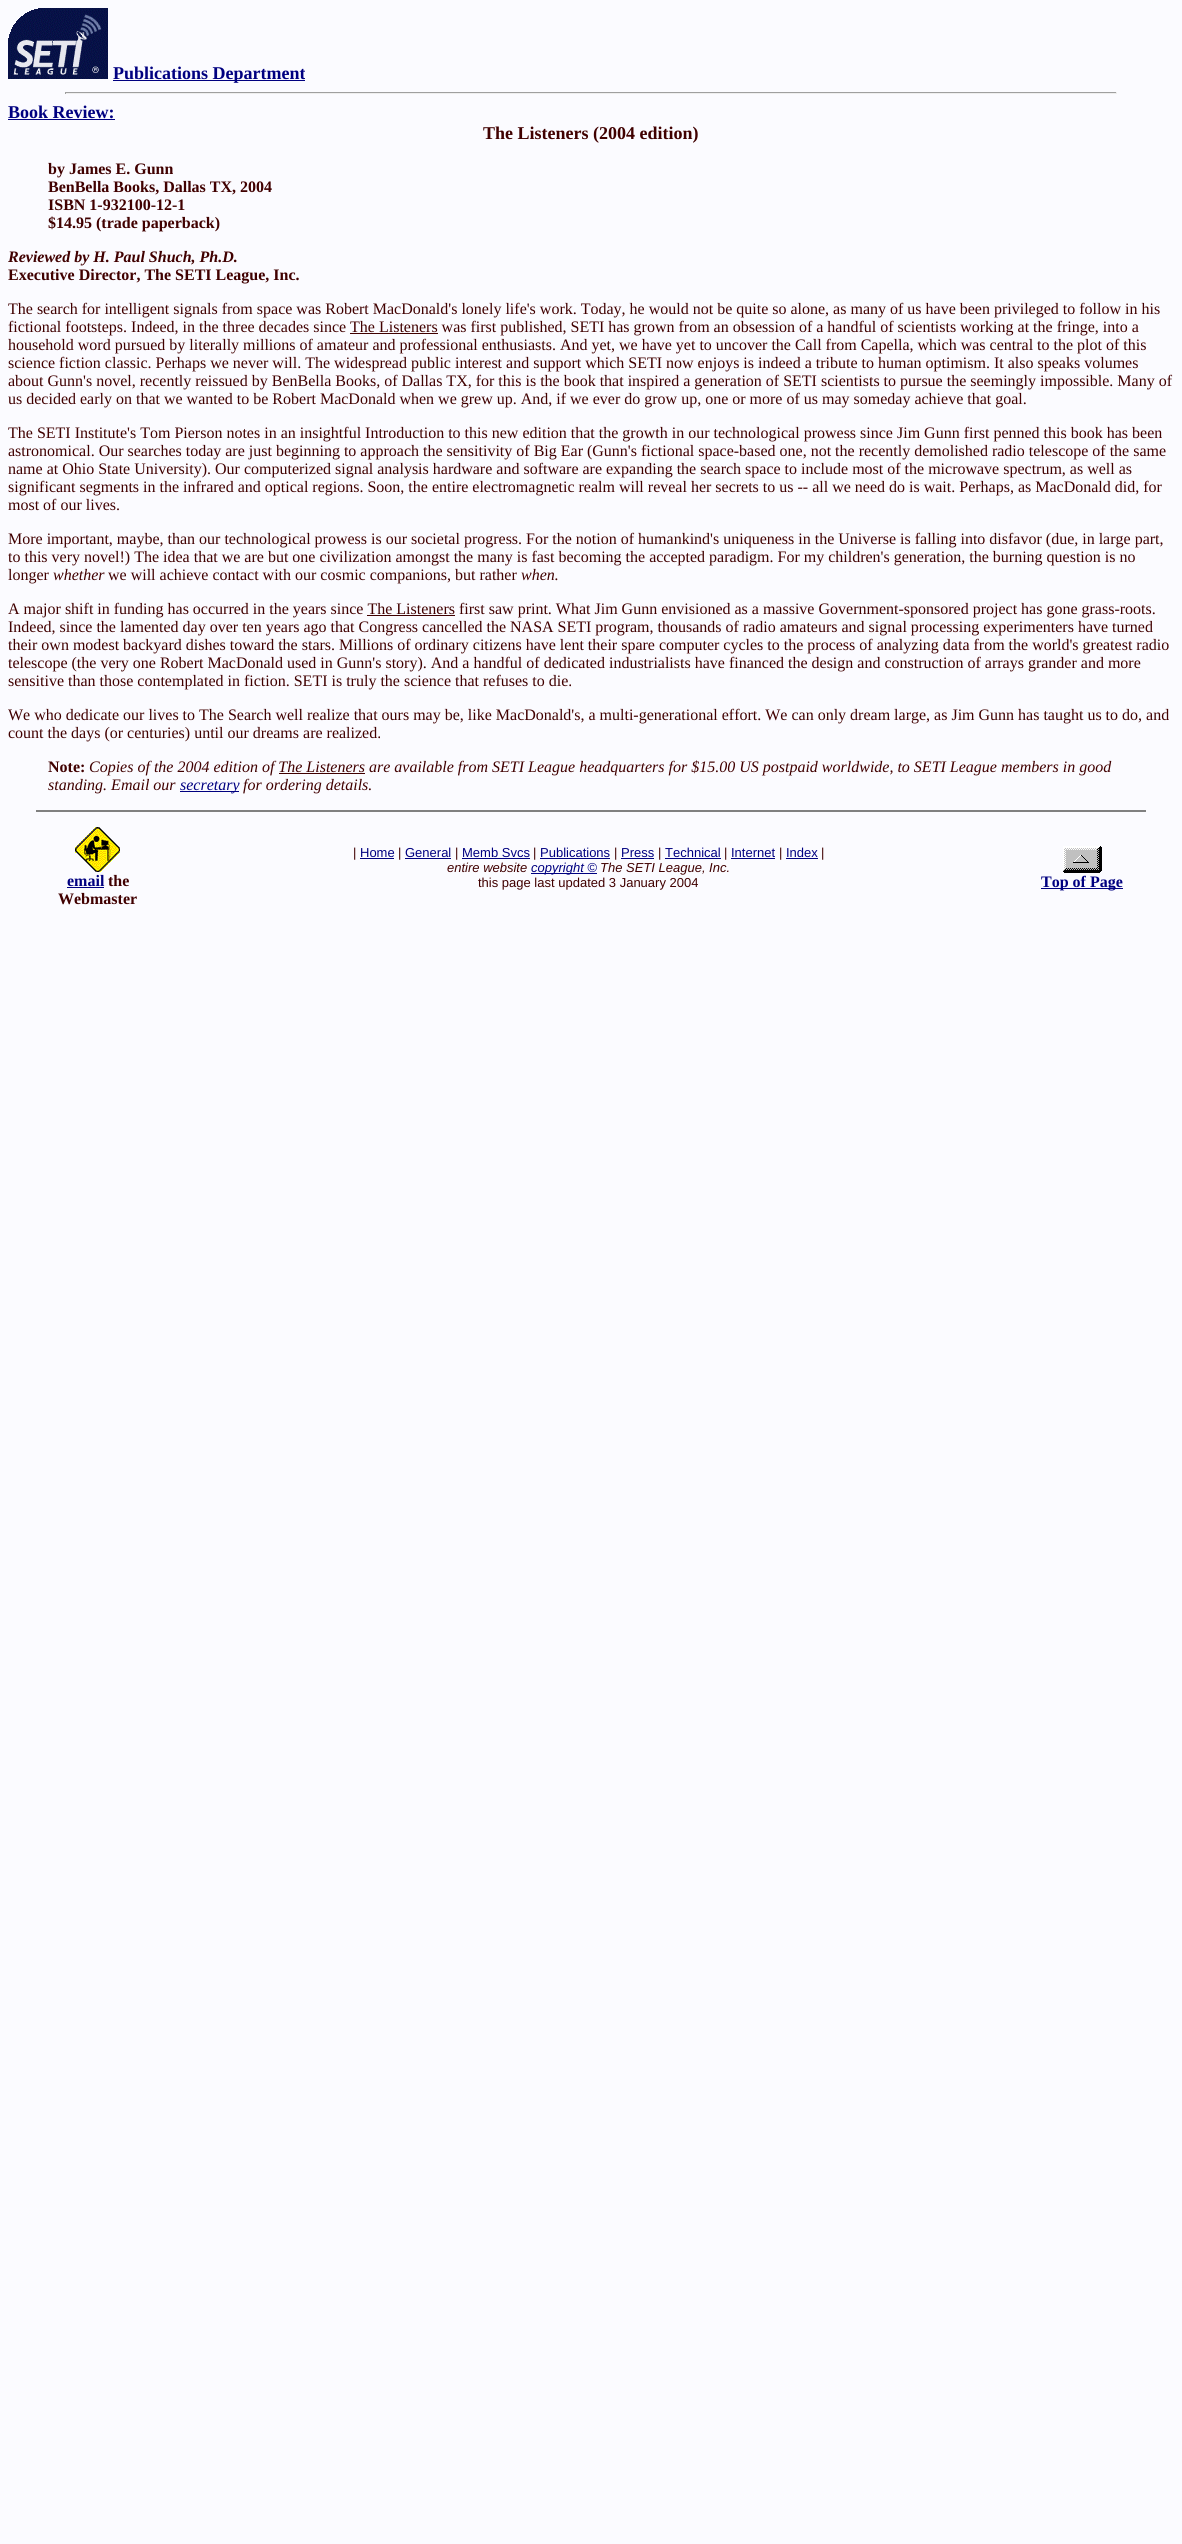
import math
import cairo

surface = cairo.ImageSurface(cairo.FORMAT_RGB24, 1182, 2544)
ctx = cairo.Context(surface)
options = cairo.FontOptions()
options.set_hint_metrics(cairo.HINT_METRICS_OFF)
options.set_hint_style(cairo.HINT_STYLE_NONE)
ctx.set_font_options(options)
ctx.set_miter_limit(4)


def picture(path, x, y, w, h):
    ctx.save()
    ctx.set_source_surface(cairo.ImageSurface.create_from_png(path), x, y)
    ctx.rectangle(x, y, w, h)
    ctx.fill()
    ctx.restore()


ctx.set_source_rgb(0.984, 0.984, 1)
ctx.paint()
picture("img1.png", 8, 8, 100, 71)
ctx.set_source_rgb(0, 0, 0.502)
ctx.rectangle(113, 80, 192, 1)
ctx.fill()
ctx.select_font_face("Liberation Serif", cairo.FONT_SLANT_NORMAL, cairo.FONT_WEIGHT_BOLD)
ctx.set_font_size(18)
ctx.move_to(113, 79)
ctx.show_text("Publications Department")
ctx.set_source_rgb(0.624, 0.624, 0.624)
ctx.rectangle(65, 92, 1052, 1)
ctx.fill()
ctx.set_source_rgb(0.933, 0.933, 0.933)
ctx.rectangle(1116, 92, 1, 2)
ctx.fill()
ctx.rectangle(65, 93, 1052, 1)
ctx.fill()
ctx.set_source_rgb(0.624, 0.624, 0.624)
ctx.rectangle(65, 92, 1, 2)
ctx.fill()
ctx.set_source_rgb(0, 0, 0.502)
ctx.move_to(8, 118)
ctx.show_text("Book Review:")
ctx.rectangle(8, 119, 107, 1)
ctx.fill()
ctx.set_source_rgb(0.251, 0, 0)
ctx.move_to(483, 139)
ctx.show_text("The Listeners (2004 edition)")
ctx.set_font_size(16)
ctx.move_to(48, 174)
ctx.show_text("by James E. Gunn")
ctx.move_to(48, 192)
ctx.show_text("BenBella Books, Dallas TX, 2004")
ctx.move_to(48, 210)
ctx.show_text("ISBN 1-932100-12-1")
ctx.move_to(48, 228)
ctx.show_text("$14.95 (trade paperback)")
ctx.select_font_face("Liberation Serif", cairo.FONT_SLANT_ITALIC, cairo.FONT_WEIGHT_BOLD)
ctx.move_to(8, 262)
ctx.show_text("Reviewed by H. Paul Shuch, Ph.D.")
ctx.select_font_face("Liberation Serif", cairo.FONT_SLANT_NORMAL, cairo.FONT_WEIGHT_BOLD)
ctx.move_to(8, 280)
ctx.show_text("Executive Director, The SETI League, Inc.")
ctx.select_font_face("Liberation Serif")
ctx.move_to(8, 314)
ctx.show_text("The search for intelligent signals from space was Robert MacDonald's lonely life's work. Today, he would not be quite so alone, as many of us have been privileged to follow in his")
ctx.move_to(8, 332)
ctx.show_text("fictional footsteps. Indeed, in the three decades since The Listeners was first published, SETI has grown from an obsession of a handful of scientists working at the fringe, into a")
ctx.rectangle(350, 333, 88, 1)
ctx.fill()
ctx.move_to(8, 350)
ctx.show_text("household word pursued by literally millions of amateur and professional enthusiasts. And yet, we have yet to uncover the Call from Capella, which was central to the plot of this")
ctx.move_to(8, 368)
ctx.show_text("science fiction classic. Perhaps we never will. The widespread public interest and support which SETI now enjoys is indeed a tribute to human optimism. It also speaks volumes")
ctx.move_to(8, 386)
ctx.show_text("about Gunn's novel, recently reissued by BenBella Books, of Dallas TX, for this is the book that inspired a generation of SETI scientists to pursue the seemingly impossible. Many of")
ctx.move_to(8, 404)
ctx.show_text("us decided early on that we wanted to be Robert MacDonald when we grew up. And, if we ever do grow up, one or more of us may someday achieve that goal.")
ctx.move_to(8, 438)
ctx.show_text("The SETI Institute's Tom Pierson notes in an insightful Introduction to this new edition that the growth in our technological prowess since Jim Gunn first penned this book has been")
ctx.move_to(8, 456)
ctx.show_text("astronomical. Our searches today are just beginning to approach the sensitivity of Big Ear (Gunn's fictional space-based one, not the recently demolished radio telescope of the same")
ctx.move_to(8, 474)
ctx.show_text("name at Ohio State University). Our computerized signal analysis hardware and software are expanding the search space to include most of the microwave spectrum, as well as")
ctx.move_to(8, 492)
ctx.show_text("significant segments in the infrared and optical regions. Soon, the entire electromagnetic realm will reveal her secrets to us -- all we need do is wait. Perhaps, as MacDonald did, for")
ctx.move_to(8, 510)
ctx.show_text("most of our lives.")
ctx.move_to(8, 544)
ctx.show_text("More important, maybe, than our technological prowess is our societal progress. For the notion of humankind's uniqueness in the Universe is falling into disfavor (due, in large part,")
ctx.move_to(8, 562)
ctx.show_text("to this very novel!) The idea that we are but one civilization amongst the many is fast becoming the accepted paradigm. For my children's generation, the burning question is no")
ctx.move_to(8, 580)
ctx.show_text("longer")
ctx.select_font_face("Liberation Serif", cairo.FONT_SLANT_ITALIC)
ctx.move_to(53, 580)
ctx.show_text("whether")
ctx.select_font_face("Liberation Serif")
ctx.move_to(108, 580)
ctx.show_text("we will achieve contact with our cosmic companions, but rather")
ctx.select_font_face("Liberation Serif", cairo.FONT_SLANT_ITALIC)
ctx.move_to(521, 580)
ctx.show_text("when.")
ctx.select_font_face("Liberation Serif")
ctx.move_to(8, 614)
ctx.show_text("A major shift in funding has occurred in the years since The Listeners first saw print. What Jim Gunn envisioned as a massive Government-sponsored project has gone grass-roots.")
ctx.rectangle(367, 615, 88, 1)
ctx.fill()
ctx.move_to(8, 632)
ctx.show_text("Indeed, since the lamented day over ten years ago that Congress cancelled the NASA SETI program, thousands of radio amateurs and signal processing experimenters have turned")
ctx.move_to(8, 650)
ctx.show_text("their own modest backyard dishes toward the stars. Millions of ordinary citizens have lent their spare computer cycles to the process of analyzing data from the world's greatest radio")
ctx.move_to(8, 668)
ctx.show_text("telescope (the very one Robert MacDonald used in Gunn's story). And a handful of dedicated industrialists have financed the design and construction of arrays grander and more")
ctx.move_to(8, 686)
ctx.show_text("sensitive than those contemplated in fiction. SETI is truly the science that refuses to die.")
ctx.move_to(8, 720)
ctx.show_text("We who dedicate our lives to The Search well realize that ours may be, like MacDonald's, a multi-generational effort. We can only dream large, as Jim Gunn has taught us to do, and")
ctx.move_to(8, 738)
ctx.show_text("count the days (or centuries) until our dreams are realized.")
ctx.select_font_face("Liberation Serif", cairo.FONT_SLANT_NORMAL, cairo.FONT_WEIGHT_BOLD)
ctx.move_to(48, 772)
ctx.show_text("Note:")
ctx.select_font_face("Liberation Serif", cairo.FONT_SLANT_ITALIC)
ctx.move_to(89, 772)
ctx.show_text("Copies of the 2004 edition of The Listeners are available from SETI League headquarters for $15.00 US postpaid worldwide, to SETI League members in good")
ctx.rectangle(279, 773, 86, 1)
ctx.fill()
ctx.move_to(48, 790)
ctx.show_text("standing. Email our")
ctx.set_source_rgb(0, 0, 0.502)
ctx.rectangle(180, 791, 59, 1)
ctx.fill()
ctx.move_to(180, 790)
ctx.show_text("secretary")
ctx.set_source_rgb(0.251, 0, 0)
ctx.move_to(243, 790)
ctx.show_text("for ordering details.")
ctx.set_source_rgb(0.502, 0.502, 0.502)
ctx.rectangle(36, 810, 1110, 2)
ctx.fill()
picture("img2.png", 75, 827, 45, 45)
ctx.select_font_face("Liberation Serif", cairo.FONT_SLANT_NORMAL, cairo.FONT_WEIGHT_BOLD)
ctx.set_source_rgb(0, 0, 0.502)
ctx.move_to(67, 886)
ctx.show_text("email")
ctx.rectangle(67, 887, 37, 1)
ctx.fill()
ctx.set_source_rgb(0.251, 0, 0)
ctx.move_to(108, 886)
ctx.show_text("the")
ctx.move_to(58, 904)
ctx.show_text("Webmaster")
ctx.select_font_face("Liberation Sans")
ctx.set_font_size(13)
ctx.move_to(353, 857)
ctx.show_text("|")
ctx.set_source_rgb(0, 0, 0.502)
ctx.move_to(360, 857)
ctx.show_text("Home")
ctx.rectangle(360, 858, 34, 1)
ctx.fill()
ctx.set_source_rgb(0.251, 0, 0)
ctx.move_to(398, 857)
ctx.show_text("|")
ctx.set_source_rgb(0, 0, 0.502)
ctx.move_to(405, 857)
ctx.show_text("General")
ctx.rectangle(405, 858, 46, 1)
ctx.fill()
ctx.set_source_rgb(0.251, 0, 0)
ctx.move_to(455, 857)
ctx.show_text("|")
ctx.set_source_rgb(0, 0, 0.502)
ctx.move_to(462, 857)
ctx.show_text("Memb Svcs")
ctx.rectangle(462, 858, 68, 1)
ctx.fill()
ctx.set_source_rgb(0.251, 0, 0)
ctx.move_to(533, 857)
ctx.show_text("|")
ctx.set_source_rgb(0, 0, 0.502)
ctx.move_to(540, 857)
ctx.show_text("Publications")
ctx.rectangle(540, 858, 70, 1)
ctx.fill()
ctx.set_source_rgb(0.251, 0, 0)
ctx.move_to(614, 857)
ctx.show_text("|")
ctx.set_source_rgb(0, 0, 0.502)
ctx.move_to(621, 857)
ctx.show_text("Press")
ctx.rectangle(621, 858, 33, 1)
ctx.fill()
ctx.set_source_rgb(0.251, 0, 0)
ctx.move_to(658, 857)
ctx.show_text("|")
ctx.set_source_rgb(0, 0, 0.502)
ctx.move_to(665, 857)
ctx.show_text("Technical")
ctx.rectangle(665, 858, 56, 1)
ctx.fill()
ctx.set_source_rgb(0.251, 0, 0)
ctx.move_to(724, 857)
ctx.show_text("|")
ctx.set_source_rgb(0, 0, 0.502)
ctx.move_to(731, 857)
ctx.show_text("Internet")
ctx.rectangle(731, 858, 44, 1)
ctx.fill()
ctx.set_source_rgb(0.251, 0, 0)
ctx.move_to(779, 857)
ctx.show_text("|")
ctx.set_source_rgb(0, 0, 0.502)
ctx.move_to(786, 857)
ctx.show_text("Index")
ctx.rectangle(786, 858, 32, 1)
ctx.fill()
ctx.set_source_rgb(0.251, 0, 0)
ctx.move_to(821, 857)
ctx.show_text("|")
ctx.select_font_face("Liberation Sans", cairo.FONT_SLANT_ITALIC)
ctx.move_to(447, 872)
ctx.show_text("entire website")
ctx.set_source_rgb(0, 0, 0.502)
ctx.rectangle(531, 873, 66, 1)
ctx.fill()
ctx.move_to(531, 872)
ctx.show_text("copyright ©")
ctx.set_source_rgb(0.251, 0, 0)
ctx.move_to(600, 872)
ctx.show_text("The SETI League, Inc.")
ctx.select_font_face("Liberation Sans")
ctx.move_to(478, 887)
ctx.show_text("this page last updated 3 January 2004")
picture("img3.png", 1063, 846, 39, 27)
ctx.set_source_rgb(0, 0, 0.502)
ctx.rectangle(1041, 888, 82, 1)
ctx.fill()
ctx.select_font_face("Liberation Serif", cairo.FONT_SLANT_NORMAL, cairo.FONT_WEIGHT_BOLD)
ctx.set_font_size(16)
ctx.move_to(1041, 887)
ctx.show_text("Top of Page")
surface.write_to_png("page.png")
